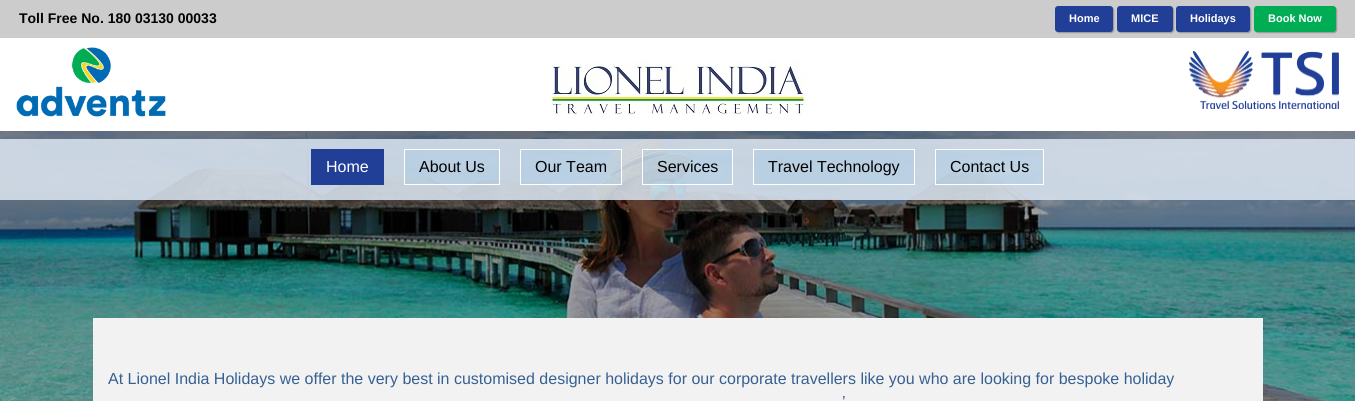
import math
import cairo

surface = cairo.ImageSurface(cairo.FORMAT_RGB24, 1355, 401)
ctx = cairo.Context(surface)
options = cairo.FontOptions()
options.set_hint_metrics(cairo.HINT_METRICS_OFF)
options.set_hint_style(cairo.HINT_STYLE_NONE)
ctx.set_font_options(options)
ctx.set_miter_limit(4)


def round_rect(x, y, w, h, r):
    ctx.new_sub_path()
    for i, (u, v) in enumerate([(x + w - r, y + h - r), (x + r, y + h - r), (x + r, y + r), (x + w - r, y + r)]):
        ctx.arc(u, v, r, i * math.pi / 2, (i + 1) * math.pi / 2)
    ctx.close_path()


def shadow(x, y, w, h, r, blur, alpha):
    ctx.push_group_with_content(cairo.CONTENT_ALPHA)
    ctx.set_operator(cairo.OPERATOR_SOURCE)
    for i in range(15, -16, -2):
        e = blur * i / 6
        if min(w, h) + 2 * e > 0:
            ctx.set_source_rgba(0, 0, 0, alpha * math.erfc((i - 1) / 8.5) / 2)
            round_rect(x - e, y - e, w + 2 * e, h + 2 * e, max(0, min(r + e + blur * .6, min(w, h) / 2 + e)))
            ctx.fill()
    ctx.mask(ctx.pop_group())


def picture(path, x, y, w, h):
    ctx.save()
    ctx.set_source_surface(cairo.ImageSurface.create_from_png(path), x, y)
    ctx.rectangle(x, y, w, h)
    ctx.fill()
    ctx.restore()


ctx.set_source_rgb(1, 1, 1)
ctx.paint()
ctx.set_source_rgb(0.8, 0.8, 0.8)
ctx.rectangle(0, 0, 1355, 38)
ctx.fill()
ctx.select_font_face("Liberation Sans", cairo.FONT_SLANT_NORMAL, cairo.FONT_WEIGHT_BOLD)
ctx.set_font_size(14)
ctx.set_source_rgb(0.008, 0.008, 0.008)
ctx.move_to(19, 23)
ctx.show_text("Toll Free No. 180 03130 00033")
ctx.set_source_rgb(0, 0, 0)
shadow(1056, 7, 58, 26, 3, 0.5, 0.26)
ctx.set_source_rgb(0.129, 0.247, 0.592)
round_rect(1055, 6, 58, 26, 3)
ctx.fill()
ctx.set_font_size(11)
ctx.set_source_rgb(1, 1, 1)
ctx.move_to(1069, 22)
ctx.show_text("Home")
ctx.set_source_rgb(0, 0, 0)
shadow(1118, 7, 56, 26, 3, 0.5, 0.26)
ctx.set_source_rgb(0.129, 0.247, 0.592)
round_rect(1117, 6, 56, 26, 3)
ctx.fill()
ctx.set_source_rgb(1, 1, 1)
ctx.move_to(1131, 22)
ctx.show_text("MICE")
ctx.set_source_rgb(0, 0, 0)
shadow(1177, 7, 74, 26, 3, 0.5, 0.26)
ctx.set_source_rgb(0.129, 0.247, 0.592)
round_rect(1176, 6, 74, 26, 3)
ctx.fill()
ctx.set_source_rgb(1, 1, 1)
ctx.move_to(1190, 22)
ctx.show_text("Holidays")
ctx.set_source_rgb(0, 0, 0)
shadow(1255, 7, 82, 26, 3, 0.5, 0.26)
ctx.set_source_rgb(0, 0.678, 0.333)
round_rect(1254, 6, 82, 26, 3)
ctx.fill()
ctx.set_source_rgb(1, 1, 1)
ctx.move_to(1268, 22)
ctx.show_text("Book Now")
picture("img1.png", 16, 47, 150, 70)
picture("img2.png", 550, 59, 256, 60)
picture("img3.png", 1189, 51, 150, 58)
picture("img4.png", 0, 131, 1355, 270)
ctx.set_source_rgba(0.863, 0.902, 0.949, 0.86)
ctx.rectangle(0, 139, 1355, 61)
ctx.fill()
ctx.set_source_rgb(0.129, 0.247, 0.592)
ctx.rectangle(311, 149, 73, 36)
ctx.fill()
ctx.select_font_face("Liberation Sans")
ctx.set_font_size(16)
ctx.set_source_rgb(1, 1, 1)
ctx.move_to(326, 172)
ctx.show_text("Home")
ctx.set_source_rgba(0.145, 0.635, 0.984, 0.08)
ctx.rectangle(404.5, 149.5, 95, 35)
ctx.fill_preserve()
ctx.set_source_rgb(1, 1, 1)
ctx.set_line_width(1)
ctx.stroke()
ctx.set_source_rgb(0.008, 0.008, 0.008)
ctx.move_to(419, 172)
ctx.show_text("About Us")
ctx.set_source_rgba(0.145, 0.635, 0.984, 0.08)
ctx.rectangle(520.5, 149.5, 101, 35)
ctx.fill_preserve()
ctx.set_source_rgb(1, 1, 1)
ctx.stroke()
ctx.set_source_rgb(0.008, 0.008, 0.008)
ctx.move_to(535, 172)
ctx.show_text("Our Team")
ctx.set_source_rgba(0.145, 0.635, 0.984, 0.08)
ctx.rectangle(642.5, 149.5, 90, 35)
ctx.fill_preserve()
ctx.set_source_rgb(1, 1, 1)
ctx.stroke()
ctx.set_source_rgb(0.008, 0.008, 0.008)
ctx.move_to(657, 172)
ctx.show_text("Services")
ctx.set_source_rgba(0.145, 0.635, 0.984, 0.08)
ctx.rectangle(753.5, 149.5, 161, 35)
ctx.fill_preserve()
ctx.set_source_rgb(1, 1, 1)
ctx.stroke()
ctx.set_source_rgb(0.008, 0.008, 0.008)
ctx.move_to(768, 172)
ctx.show_text("Travel Technology")
ctx.set_source_rgba(0.145, 0.635, 0.984, 0.08)
ctx.rectangle(935.5, 149.5, 108, 35)
ctx.fill_preserve()
ctx.set_source_rgb(1, 1, 1)
ctx.stroke()
ctx.set_source_rgb(0.008, 0.008, 0.008)
ctx.move_to(950, 172)
ctx.show_text("Contact Us")
ctx.set_source_rgb(0.949, 0.949, 0.949)
ctx.rectangle(93, 318, 1170, 83)
ctx.fill()
ctx.set_source_rgb(0.216, 0.376, 0.573)
ctx.move_to(108, 384)
ctx.show_text("At Lionel India Holidays we offer the very best in customised designer holidays for our corporate travellers like you who are looking for bespoke holiday")
ctx.move_to(842, 407)
ctx.show_text("’")
surface.write_to_png("page.png")
